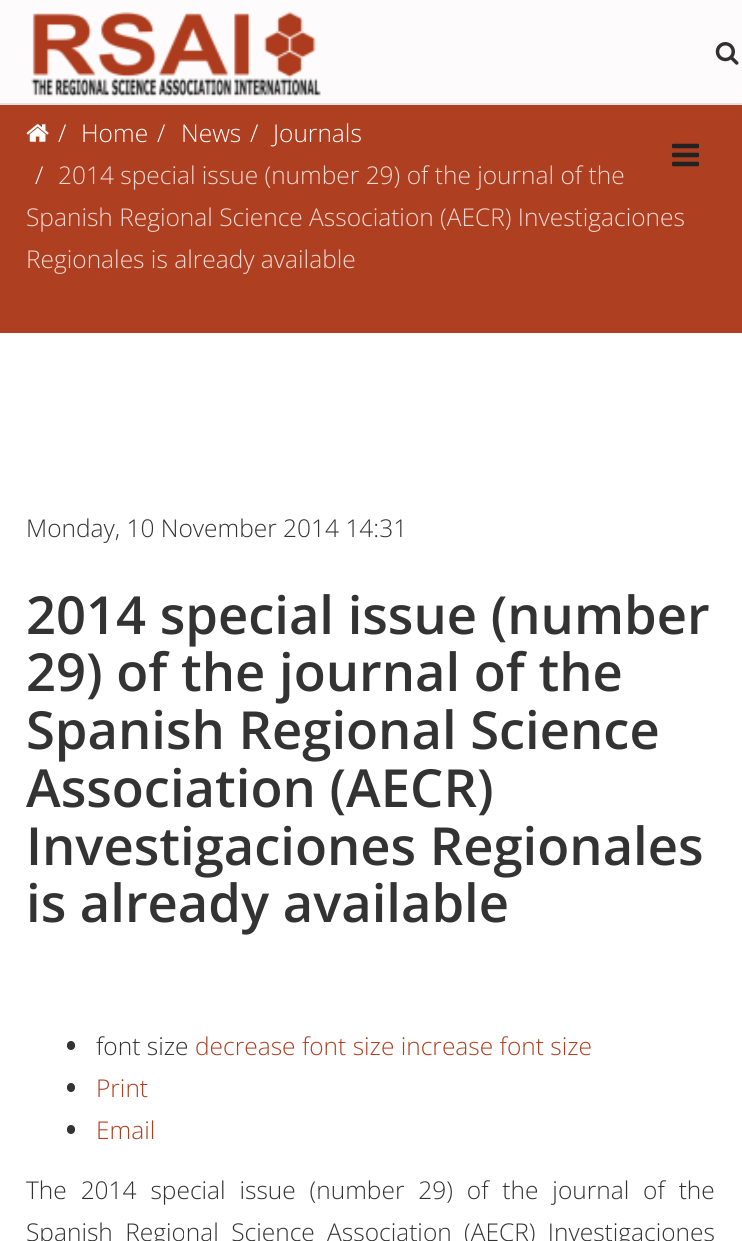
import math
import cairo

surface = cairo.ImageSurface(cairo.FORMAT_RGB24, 742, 1241)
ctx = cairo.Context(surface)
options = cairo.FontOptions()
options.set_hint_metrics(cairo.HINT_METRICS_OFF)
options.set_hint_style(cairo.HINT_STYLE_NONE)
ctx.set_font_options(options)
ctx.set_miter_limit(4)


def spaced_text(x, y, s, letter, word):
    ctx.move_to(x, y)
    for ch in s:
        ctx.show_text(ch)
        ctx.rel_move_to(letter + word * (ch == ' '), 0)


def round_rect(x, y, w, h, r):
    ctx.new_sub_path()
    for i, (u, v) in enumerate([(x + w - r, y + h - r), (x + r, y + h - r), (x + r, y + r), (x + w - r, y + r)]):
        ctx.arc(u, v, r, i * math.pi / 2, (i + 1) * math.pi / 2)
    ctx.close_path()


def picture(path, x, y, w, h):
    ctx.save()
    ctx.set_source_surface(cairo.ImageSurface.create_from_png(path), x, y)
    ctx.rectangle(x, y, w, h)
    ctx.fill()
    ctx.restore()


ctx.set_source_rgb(1, 1, 1)
ctx.paint()
ctx.set_source_rgb(0.882, 0.882, 0.882)
ctx.rectangle(0, 103, 742, 2)
ctx.fill()
ctx.set_source_rgb(0.992, 0.984, 0.984)
ctx.rectangle(0, 0, 742, 103)
ctx.fill()
picture("img1.png", 31, 11, 290, 86)
picture("img2.png", 715, 42, 24, 23)
ctx.set_source_rgb(0.686, 0.247, 0.129)
ctx.rectangle(0, 105, 742, 228)
ctx.fill()
picture("img3.png", 672, 143, 27, 24)
picture("img4.png", 26, 124, 23, 18)
ctx.select_font_face("Open Sans Light")
ctx.set_font_size(24.5)
ctx.set_source_rgb(1, 1, 1)
ctx.move_to(58, 142)
ctx.show_text("/")
ctx.move_to(81, 142)
ctx.show_text("Home")
ctx.move_to(157, 142)
ctx.show_text("/")
ctx.move_to(181, 142)
ctx.show_text("News")
ctx.move_to(250, 142)
ctx.show_text("/")
ctx.move_to(273, 142)
ctx.show_text("Journals")
ctx.move_to(35, 184)
ctx.show_text("/")
ctx.set_source_rgb(0.937, 0.851, 0.827)
ctx.move_to(58, 184)
ctx.show_text("2014 special issue (number 29) of the journal of the")
ctx.move_to(26, 226)
ctx.show_text("Spanish Regional Science Association (AECR) Investigaciones")
ctx.move_to(26, 268)
ctx.show_text("Regionales is already available")
ctx.set_source_rgb(0.2, 0.2, 0.2)
ctx.move_to(26, 537)
ctx.show_text("Monday, 10 November 2014 14:31")
ctx.select_font_face("Open Sans SemiBold")
ctx.set_font_size(52.5)
ctx.move_to(26, 634)
ctx.show_text("2014 special issue (number")
ctx.move_to(26, 691)
ctx.show_text("29) of the journal of the")
ctx.move_to(26, 749)
ctx.show_text("Spanish Regional Science")
ctx.move_to(26, 807)
ctx.show_text("Association (AECR)")
ctx.move_to(26, 865)
ctx.show_text("Investigaciones Regionales")
ctx.move_to(26, 922)
ctx.show_text("is already available")
round_rect(67, 1041, 8, 9, 4)
ctx.fill()
ctx.select_font_face("Open Sans Light")
ctx.set_font_size(24.5)
ctx.move_to(96, 1055)
ctx.show_text("font size")
ctx.set_source_rgb(0.686, 0.247, 0.129)
ctx.move_to(195, 1055)
ctx.show_text("decrease font size increase font size")
ctx.set_source_rgb(0.2, 0.2, 0.2)
round_rect(67, 1083, 8, 9, 4)
ctx.fill()
ctx.set_source_rgb(0.686, 0.247, 0.129)
ctx.move_to(96, 1097)
ctx.show_text("Print")
ctx.set_source_rgb(0.2, 0.2, 0.2)
round_rect(67, 1125, 8, 9, 4)
ctx.fill()
ctx.set_source_rgb(0.686, 0.247, 0.129)
ctx.move_to(96, 1139)
ctx.show_text("Email")
ctx.set_source_rgb(0.2, 0.2, 0.2)
spaced_text(26, 1199, "The 2014 special issue (number 29) of the journal of the", 0, 7.5)
spaced_text(26, 1241, "Spanish Regional Science Association (AECR) Investigaciones", 0, 6)
surface.write_to_png("page.png")
